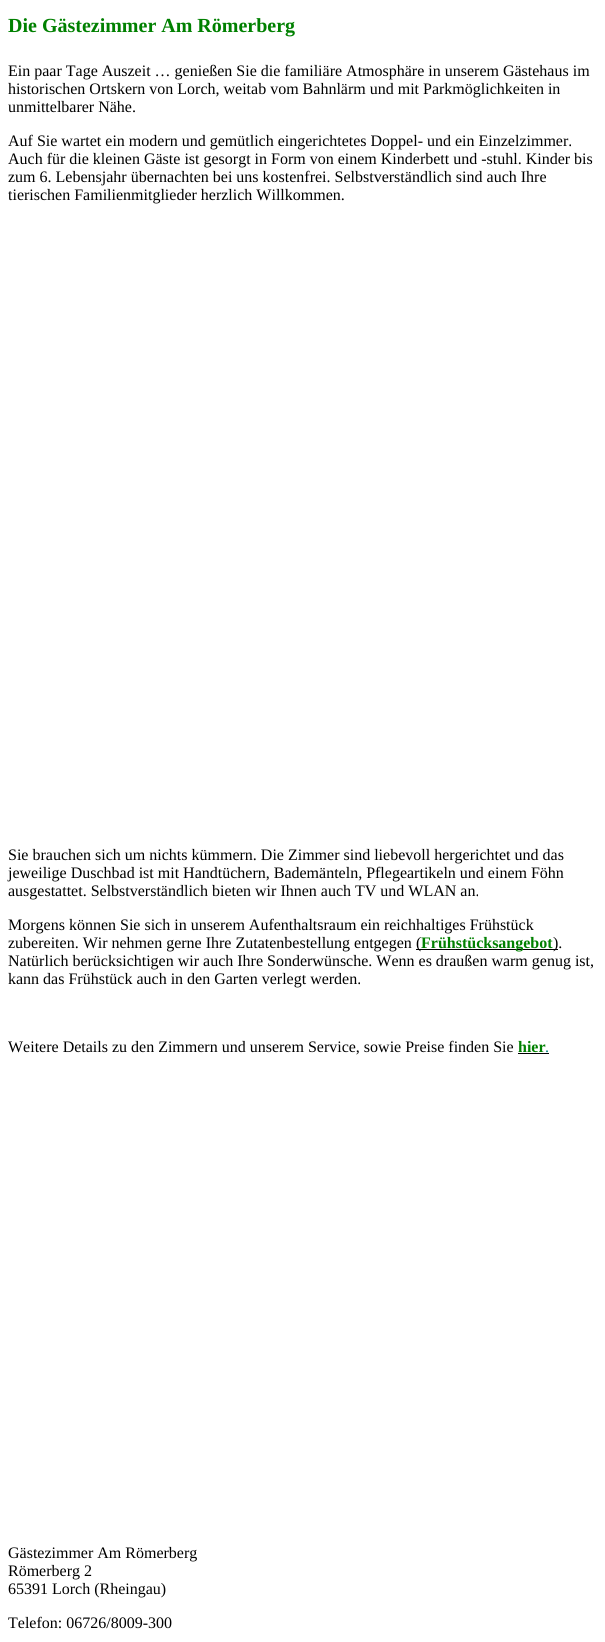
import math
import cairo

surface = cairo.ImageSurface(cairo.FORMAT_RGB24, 605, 1642)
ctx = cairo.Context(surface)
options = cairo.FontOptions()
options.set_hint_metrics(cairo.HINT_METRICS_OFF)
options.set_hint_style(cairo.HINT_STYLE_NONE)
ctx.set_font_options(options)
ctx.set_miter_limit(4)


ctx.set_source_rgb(1, 1, 1)
ctx.paint()
ctx.select_font_face("Liberation Serif", cairo.FONT_SLANT_NORMAL, cairo.FONT_WEIGHT_BOLD)
ctx.set_font_size(20)
ctx.set_source_rgb(0, 0.502, 0)
ctx.move_to(8, 32)
ctx.show_text("Die Gästezimmer Am Römerberg")
ctx.select_font_face("Liberation Serif")
ctx.set_font_size(16)
ctx.set_source_rgb(0, 0, 0)
ctx.move_to(8, 76)
ctx.show_text("Ein paar Tage Auszeit … genießen Sie die familiäre Atmosphäre in unserem Gästehaus im")
ctx.move_to(8, 94)
ctx.show_text("historischen Ortskern von Lorch, weitab vom Bahnlärm und mit Parkmöglichkeiten in")
ctx.move_to(8, 112)
ctx.show_text("unmittelbarer Nähe.")
ctx.move_to(8, 146)
ctx.show_text("Auf Sie wartet ein modern und gemütlich eingerichtetes Doppel- und ein Einzelzimmer.")
ctx.move_to(8, 164)
ctx.show_text("Auch für die kleinen Gäste ist gesorgt in Form von einem Kinderbett und -stuhl. Kinder bis")
ctx.move_to(8, 182)
ctx.show_text("zum 6. Lebensjahr übernachten bei uns kostenfrei. Selbstverständlich sind auch Ihre")
ctx.move_to(8, 200)
ctx.show_text("tierischen Familienmitglieder herzlich Willkommen.")
ctx.move_to(8, 860)
ctx.show_text("Sie brauchen sich um nichts kümmern. Die Zimmer sind liebevoll hergerichtet und das")
ctx.move_to(8, 878)
ctx.show_text("jeweilige Duschbad ist mit Handtüchern, Bademänteln, Pflegeartikeln und einem Föhn")
ctx.move_to(8, 896)
ctx.show_text("ausgestattet. Selbstverständlich bieten wir Ihnen auch TV und WLAN an.")
ctx.move_to(8, 930)
ctx.show_text("Morgens können Sie sich in unserem Aufenthaltsraum ein reichhaltiges Frühstück")
ctx.move_to(8, 948)
ctx.show_text("zubereiten. Wir nehmen gerne Ihre Zutatenbestellung entgegen")
ctx.rectangle(416, 949, 142, 1)
ctx.fill()
ctx.move_to(416, 948)
ctx.show_text("(")
ctx.select_font_face("Liberation Serif", cairo.FONT_SLANT_NORMAL, cairo.FONT_WEIGHT_BOLD)
ctx.set_source_rgb(0, 0.502, 0)
ctx.move_to(421, 948)
ctx.show_text("Frühstücksangebot")
ctx.select_font_face("Liberation Serif")
ctx.set_source_rgb(0, 0, 0)
ctx.move_to(553, 948)
ctx.show_text(").")
ctx.move_to(8, 966)
ctx.show_text("Natürlich berücksichtigen wir auch Ihre Sonderwünsche. Wenn es draußen warm genug ist,")
ctx.move_to(8, 984)
ctx.show_text("kann das Frühstück auch in den Garten verlegt werden.")
ctx.move_to(8, 1052)
ctx.show_text("Weitere Details zu den Zimmern und unserem Service, sowie Preise finden Sie")
ctx.select_font_face("Liberation Serif", cairo.FONT_SLANT_NORMAL, cairo.FONT_WEIGHT_BOLD)
ctx.set_source_rgb(0, 0.502, 0)
ctx.move_to(518, 1052)
ctx.show_text("hier")
ctx.select_font_face("Liberation Serif")
ctx.set_source_rgb(0, 0.502, 0.502)
ctx.move_to(545, 1052)
ctx.show_text(".")
ctx.set_source_rgb(0, 0, 0)
ctx.rectangle(518, 1053, 31, 1)
ctx.fill()
ctx.move_to(8, 1558)
ctx.show_text("Gästezimmer Am Römerberg")
ctx.move_to(8, 1576)
ctx.show_text("Römerberg 2")
ctx.move_to(8, 1594)
ctx.show_text("65391 Lorch (Rheingau)")
ctx.move_to(8, 1628)
ctx.show_text("Telefon: 06726/8009-300")
surface.write_to_png("page.png")
